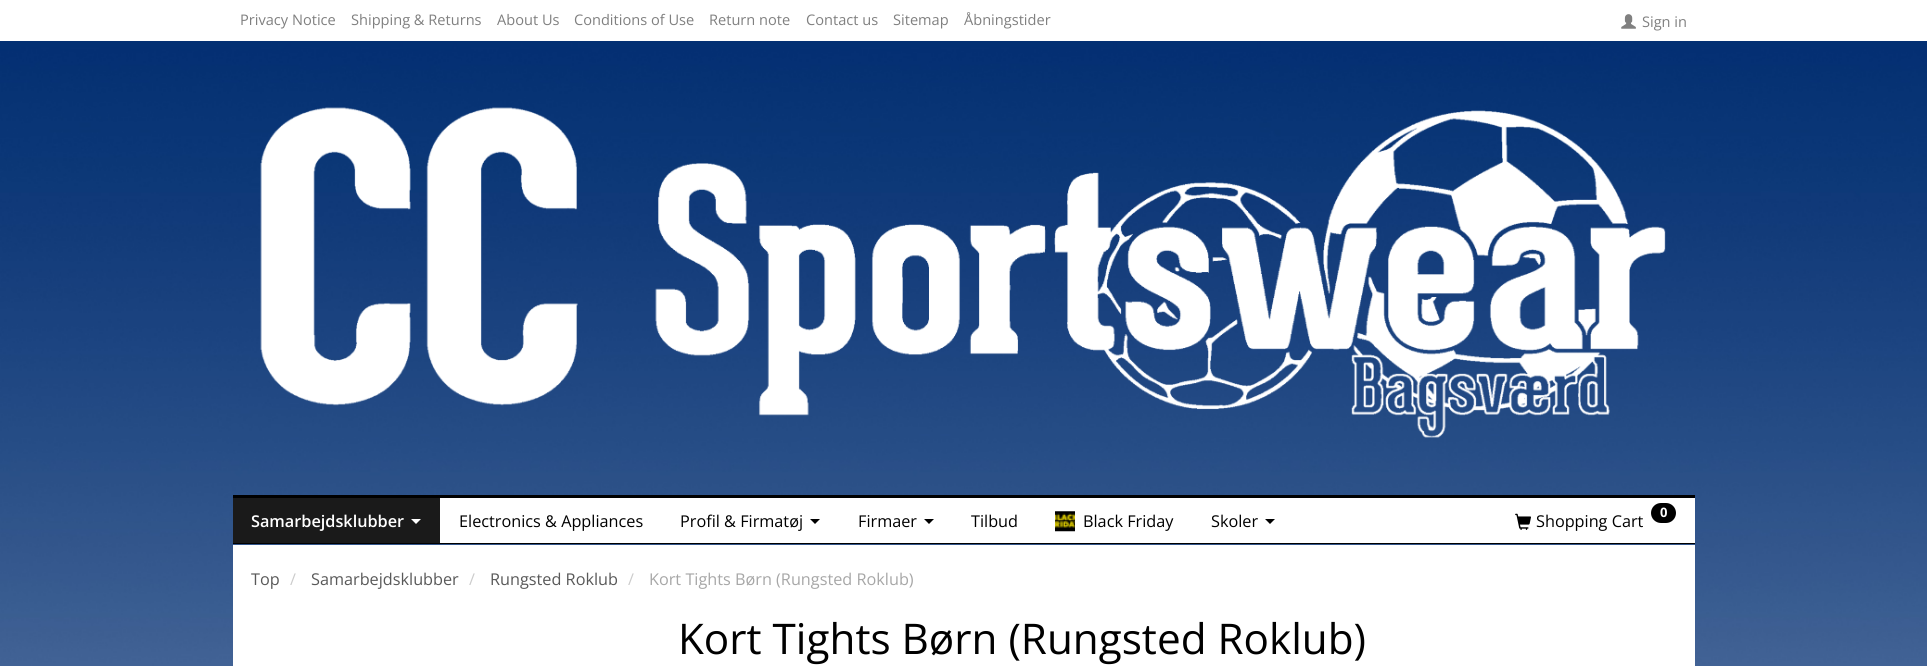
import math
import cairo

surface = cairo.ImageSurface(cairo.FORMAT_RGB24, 1927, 666)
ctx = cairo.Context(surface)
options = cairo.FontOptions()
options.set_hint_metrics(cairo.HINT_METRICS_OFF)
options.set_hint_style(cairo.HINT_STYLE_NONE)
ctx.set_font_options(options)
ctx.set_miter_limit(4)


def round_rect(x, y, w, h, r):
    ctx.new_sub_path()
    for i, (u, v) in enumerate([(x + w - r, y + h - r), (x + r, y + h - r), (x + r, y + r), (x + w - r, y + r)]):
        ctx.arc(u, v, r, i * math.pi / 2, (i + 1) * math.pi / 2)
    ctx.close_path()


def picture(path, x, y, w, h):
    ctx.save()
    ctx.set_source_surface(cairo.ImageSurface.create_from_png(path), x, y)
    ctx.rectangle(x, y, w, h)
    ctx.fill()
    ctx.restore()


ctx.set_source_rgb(1, 1, 1)
ctx.paint()
picture("img1.png", 0, 41, 1927, 625)
ctx.select_font_face("Open Sans")
ctx.set_font_size(14.6)
ctx.set_source_rgb(0.502, 0.502, 0.502)
ctx.move_to(240, 25)
ctx.show_text("Privacy Notice")
ctx.move_to(351, 25)
ctx.show_text("Shipping & Returns")
ctx.move_to(497, 25)
ctx.show_text("About Us")
ctx.move_to(574, 25)
ctx.show_text("Conditions of Use")
ctx.move_to(709, 25)
ctx.show_text("Return note")
ctx.move_to(806, 25)
ctx.show_text("Contact us")
ctx.move_to(893, 25)
ctx.show_text("Sitemap")
ctx.move_to(964, 25)
ctx.show_text("Åbningstider")
picture("img2.png", 1621, 14, 15, 15)
ctx.move_to(1642, 27)
ctx.show_text("Sign in")
picture("img3.png", 260, 107, 1406, 331)
ctx.set_source_rgb(1, 1, 1)
ctx.rectangle(440, 498, 1255, 45)
ctx.fill()
ctx.set_source_rgb(0, 0, 0)
ctx.rectangle(233, 495, 1462, 3)
ctx.fill()
ctx.rectangle(233, 543, 1462, 1)
ctx.fill()
ctx.set_source_rgb(0.102, 0.102, 0.102)
ctx.rectangle(233, 498, 207, 45)
ctx.fill()
ctx.select_font_face("Open Sans SemiBold")
ctx.set_font_size(16.25)
ctx.set_source_rgb(1, 1, 1)
ctx.move_to(251, 527)
ctx.show_text("Samarbejdsklubber")
ctx.new_path()
ctx.move_to(411, 519)
ctx.line_to(421, 519)
ctx.line_to(416, 524)
ctx.close_path()
ctx.fill()
ctx.select_font_face("Open Sans")
ctx.set_source_rgb(0, 0, 0)
ctx.move_to(459, 527)
ctx.show_text("Electronics & Appliances")
ctx.move_to(680, 527)
ctx.show_text("Profil & Firmatøj")
ctx.new_path()
ctx.move_to(810, 519)
ctx.line_to(820, 519)
ctx.line_to(815, 524)
ctx.close_path()
ctx.fill()
ctx.move_to(858, 527)
ctx.show_text("Firmaer")
ctx.new_path()
ctx.move_to(924, 519)
ctx.line_to(934, 519)
ctx.line_to(929, 524)
ctx.close_path()
ctx.fill()
ctx.move_to(971, 527)
ctx.show_text("Tilbud")
picture("img4.png", 1055, 511, 20, 21)
ctx.move_to(1083, 527)
ctx.show_text("Black Friday")
ctx.move_to(1211, 527)
ctx.show_text("Skoler")
ctx.new_path()
ctx.move_to(1265, 519)
ctx.line_to(1275, 519)
ctx.line_to(1270, 524)
ctx.close_path()
ctx.fill()
picture("img5.png", 1515, 513, 16, 17)
ctx.move_to(1536, 527)
ctx.show_text("Shopping Cart")
round_rect(1651, 503, 25, 20, 10)
ctx.fill()
ctx.select_font_face("Open Sans", cairo.FONT_SLANT_NORMAL, cairo.FONT_WEIGHT_BOLD)
ctx.set_font_size(13)
ctx.set_source_rgb(1, 1, 1)
ctx.move_to(1660, 517)
ctx.show_text("0")
ctx.rectangle(233, 545, 1462, 121)
ctx.fill()
ctx.select_font_face("Open Sans")
ctx.set_font_size(16.25)
ctx.set_source_rgb(0.349, 0.349, 0.349)
ctx.move_to(251, 585)
ctx.show_text("Top")
ctx.set_source_rgb(0.8, 0.8, 0.8)
ctx.move_to(290, 585)
ctx.show_text("/")
ctx.set_source_rgb(0.349, 0.349, 0.349)
ctx.move_to(311, 585)
ctx.show_text("Samarbejdsklubber")
ctx.set_source_rgb(0.8, 0.8, 0.8)
ctx.move_to(469, 585)
ctx.show_text("/")
ctx.set_source_rgb(0.349, 0.349, 0.349)
ctx.move_to(490, 585)
ctx.show_text("Rungsted Roklub")
ctx.set_source_rgb(0.8, 0.8, 0.8)
ctx.move_to(628, 585)
ctx.show_text("/")
ctx.set_source_rgb(0.655, 0.655, 0.655)
ctx.move_to(649, 585)
ctx.show_text("Kort Tights Børn (Rungsted Roklub)")
ctx.set_font_size(42.25)
ctx.set_source_rgb(0, 0, 0)
ctx.move_to(678, 654)
ctx.show_text("Kort Tights Børn (Rungsted Roklub)")
surface.write_to_png("page.png")
